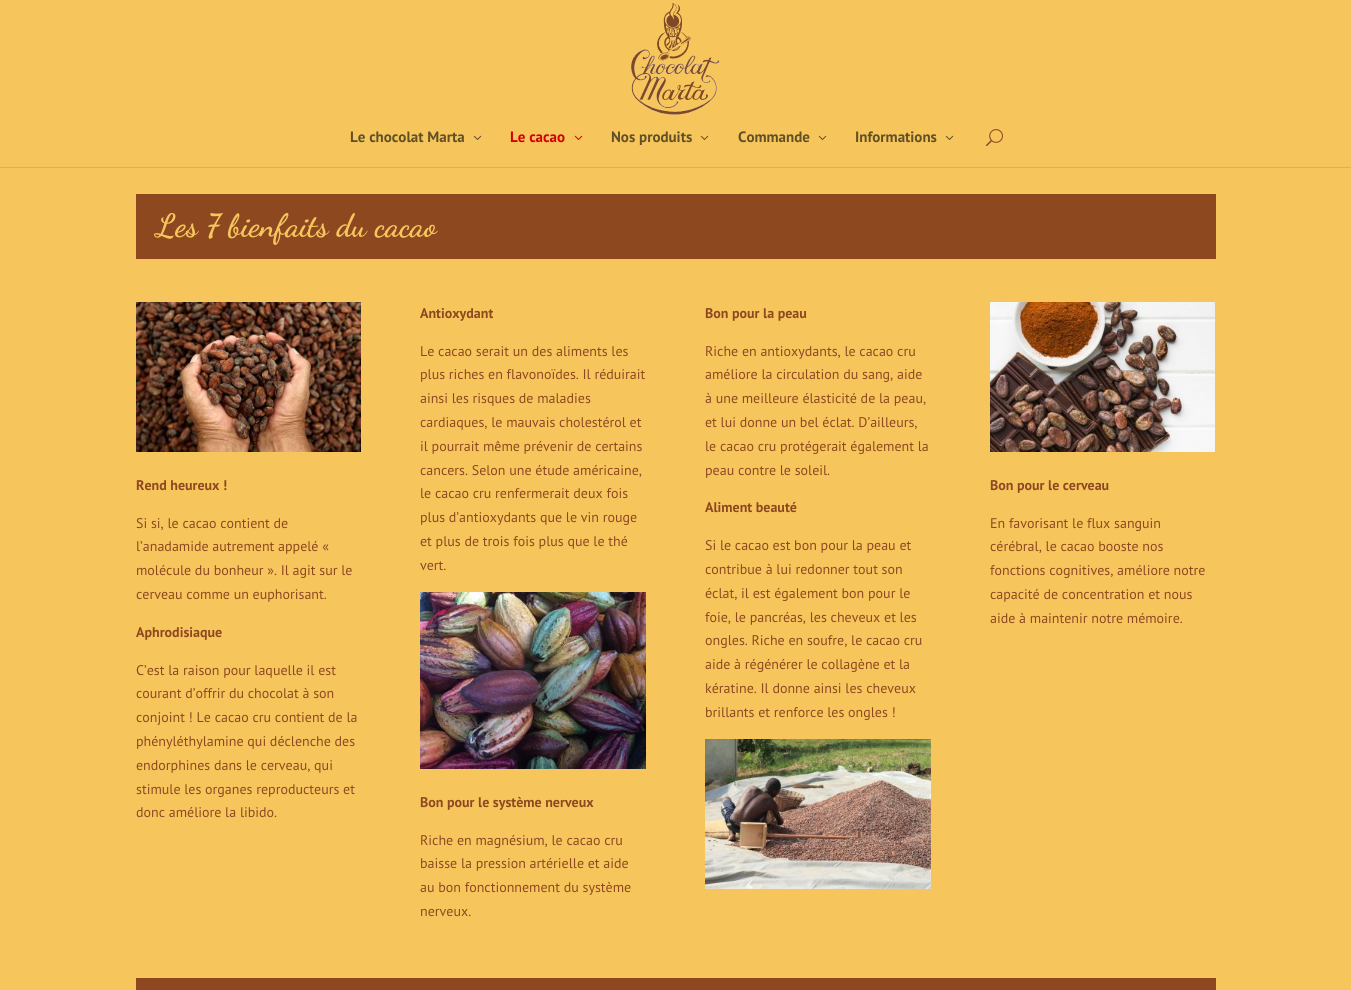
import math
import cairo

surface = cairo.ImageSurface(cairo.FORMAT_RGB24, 1351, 990)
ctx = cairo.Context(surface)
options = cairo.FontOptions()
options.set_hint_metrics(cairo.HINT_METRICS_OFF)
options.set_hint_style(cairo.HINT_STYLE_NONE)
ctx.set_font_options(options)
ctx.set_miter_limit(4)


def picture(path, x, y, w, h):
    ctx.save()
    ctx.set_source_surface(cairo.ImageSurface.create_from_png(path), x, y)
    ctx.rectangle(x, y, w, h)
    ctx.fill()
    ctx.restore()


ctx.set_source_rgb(0.961, 0.776, 0.365)
ctx.paint()
ctx.set_source_rgb(0.867, 0.698, 0.329)
ctx.rectangle(0, 167, 1351, 1)
ctx.fill()
picture("img1.png", 631, 3, 89, 112)
ctx.select_font_face("PT Sans", cairo.FONT_SLANT_NORMAL, cairo.FONT_WEIGHT_BOLD)
ctx.set_font_size(15)
ctx.set_source_rgb(0.384, 0.31, 0.145)
ctx.move_to(350, 142)
ctx.show_text("Le chocolat Marta")
picture("img2.png", 473, 135, 9, 5)
ctx.set_source_rgb(0.82, 0, 0)
ctx.move_to(510, 142)
ctx.show_text("Le cacao")
picture("img3.png", 574, 135, 9, 5)
ctx.set_source_rgb(0.384, 0.31, 0.145)
ctx.move_to(611, 142)
ctx.show_text("Nos produits")
picture("img2.png", 700, 135, 9, 5)
ctx.move_to(738, 142)
ctx.show_text("Commande")
picture("img2.png", 818, 135, 9, 5)
ctx.move_to(855, 142)
ctx.show_text("Informations")
picture("img2.png", 945, 135, 9, 5)
picture("img4.png", 986, 129, 17, 18)
ctx.set_source_rgb(0.557, 0.282, 0.125)
ctx.rectangle(136, 194, 1080, 65)
ctx.fill()
ctx.select_font_face("Dancing Script", cairo.FONT_SLANT_NORMAL, cairo.FONT_WEIGHT_BOLD)
ctx.set_font_size(32)
ctx.set_source_rgb(0.961, 0.776, 0.365)
ctx.move_to(156, 236)
ctx.show_text("Les 7 bienfaits du cacao")
picture("img5.png", 136, 302, 225, 150)
ctx.select_font_face("PT Sans", cairo.FONT_SLANT_NORMAL, cairo.FONT_WEIGHT_BOLD)
ctx.set_font_size(14)
ctx.set_source_rgb(0.557, 0.282, 0.125)
ctx.move_to(136, 490)
ctx.show_text("Rend heureux !")
ctx.select_font_face("PT Sans")
ctx.move_to(136, 528)
ctx.show_text("Si si, le cacao contient de")
ctx.move_to(136, 551)
ctx.show_text("l’anadamide autrement appelé «")
ctx.move_to(136, 575)
ctx.show_text("molécule du bonheur ». Il agit sur le")
ctx.move_to(136, 599)
ctx.show_text("cerveau comme un euphorisant.")
ctx.select_font_face("PT Sans", cairo.FONT_SLANT_NORMAL, cairo.FONT_WEIGHT_BOLD)
ctx.move_to(136, 637)
ctx.show_text("Aphrodisiaque")
ctx.select_font_face("PT Sans")
ctx.move_to(136, 675)
ctx.show_text("C’est la raison pour laquelle il est")
ctx.move_to(136, 698)
ctx.show_text("courant d’offrir du chocolat à son")
ctx.move_to(136, 722)
ctx.show_text("conjoint ! Le cacao cru contient de la")
ctx.move_to(136, 746)
ctx.show_text("phényléthylamine qui déclenche des")
ctx.move_to(136, 770)
ctx.show_text("endorphines dans le cerveau, qui")
ctx.move_to(136, 794)
ctx.show_text("stimule les organes reproducteurs et")
ctx.move_to(136, 817)
ctx.show_text("donc améliore la libido.")
ctx.select_font_face("PT Sans", cairo.FONT_SLANT_NORMAL, cairo.FONT_WEIGHT_BOLD)
ctx.move_to(420, 318)
ctx.show_text("Antioxydant")
ctx.select_font_face("PT Sans")
ctx.move_to(420, 356)
ctx.show_text("Le cacao serait un des aliments les")
ctx.move_to(420, 379)
ctx.show_text("plus riches en flavonoïdes. Il réduirait")
ctx.move_to(420, 403)
ctx.show_text("ainsi les risques de maladies")
ctx.move_to(420, 427)
ctx.show_text("cardiaques, le mauvais cholestérol et")
ctx.move_to(420, 451)
ctx.show_text("il pourrait même prévenir de certains")
ctx.move_to(420, 475)
ctx.show_text("cancers. Selon une étude américaine,")
ctx.move_to(420, 498)
ctx.show_text("le cacao cru renfermerait deux fois")
ctx.move_to(420, 522)
ctx.show_text("plus d’antioxydants que le vin rouge")
ctx.move_to(420, 546)
ctx.show_text("et plus de trois fois plus que le thé")
ctx.move_to(420, 570)
ctx.show_text("vert.")
picture("img6.png", 420, 592, 226, 177)
ctx.select_font_face("PT Sans", cairo.FONT_SLANT_NORMAL, cairo.FONT_WEIGHT_BOLD)
ctx.move_to(420, 807)
ctx.show_text("Bon pour le système nerveux")
ctx.select_font_face("PT Sans")
ctx.move_to(420, 845)
ctx.show_text("Riche en magnésium, le cacao cru")
ctx.move_to(420, 868)
ctx.show_text("baisse la pression artérielle et aide")
ctx.move_to(420, 892)
ctx.show_text("au bon fonctionnement du système")
ctx.move_to(420, 916)
ctx.show_text("nerveux.")
ctx.select_font_face("PT Sans", cairo.FONT_SLANT_NORMAL, cairo.FONT_WEIGHT_BOLD)
ctx.move_to(705, 318)
ctx.show_text("Bon pour la peau")
ctx.select_font_face("PT Sans")
ctx.move_to(705, 356)
ctx.show_text("Riche en antioxydants, le cacao cru")
ctx.move_to(705, 379)
ctx.show_text("améliore la circulation du sang, aide")
ctx.move_to(705, 403)
ctx.show_text("à une meilleure élasticité de la peau,")
ctx.move_to(705, 427)
ctx.show_text("et lui donne un bel éclat. D’ailleurs,")
ctx.move_to(705, 451)
ctx.show_text("le cacao cru protégerait également la")
ctx.move_to(705, 475)
ctx.show_text("peau contre le soleil.")
ctx.select_font_face("PT Sans", cairo.FONT_SLANT_NORMAL, cairo.FONT_WEIGHT_BOLD)
ctx.move_to(705, 512)
ctx.show_text("Aliment beauté")
ctx.select_font_face("PT Sans")
ctx.move_to(705, 550)
ctx.show_text("Si le cacao est bon pour la peau et")
ctx.move_to(705, 574)
ctx.show_text("contribue à lui redonner tout son")
ctx.move_to(705, 598)
ctx.show_text("éclat, il est également bon pour le")
ctx.move_to(705, 622)
ctx.show_text("foie, le pancréas, les cheveux et les")
ctx.move_to(705, 645)
ctx.show_text("ongles. Riche en soufre, le cacao cru")
ctx.move_to(705, 669)
ctx.show_text("aide à régénérer le collagène et la")
ctx.move_to(705, 693)
ctx.show_text("kératine. Il donne ainsi les cheveux")
ctx.move_to(705, 717)
ctx.show_text("brillants et renforce les ongles !")
picture("img7.png", 705, 739, 226, 150)
picture("img8.png", 990, 302, 225, 150)
ctx.select_font_face("PT Sans", cairo.FONT_SLANT_NORMAL, cairo.FONT_WEIGHT_BOLD)
ctx.move_to(990, 490)
ctx.show_text("Bon pour le cerveau")
ctx.select_font_face("PT Sans")
ctx.move_to(990, 528)
ctx.show_text("En favorisant le flux sanguin")
ctx.move_to(990, 551)
ctx.show_text("cérébral, le cacao booste nos")
ctx.move_to(990, 575)
ctx.show_text("fonctions cognitives, améliore notre")
ctx.move_to(990, 599)
ctx.show_text("capacité de concentration et nous")
ctx.move_to(990, 623)
ctx.show_text("aide à maintenir notre mémoire.")
ctx.rectangle(136, 978, 1080, 12)
ctx.fill()
surface.write_to_png("page.png")
